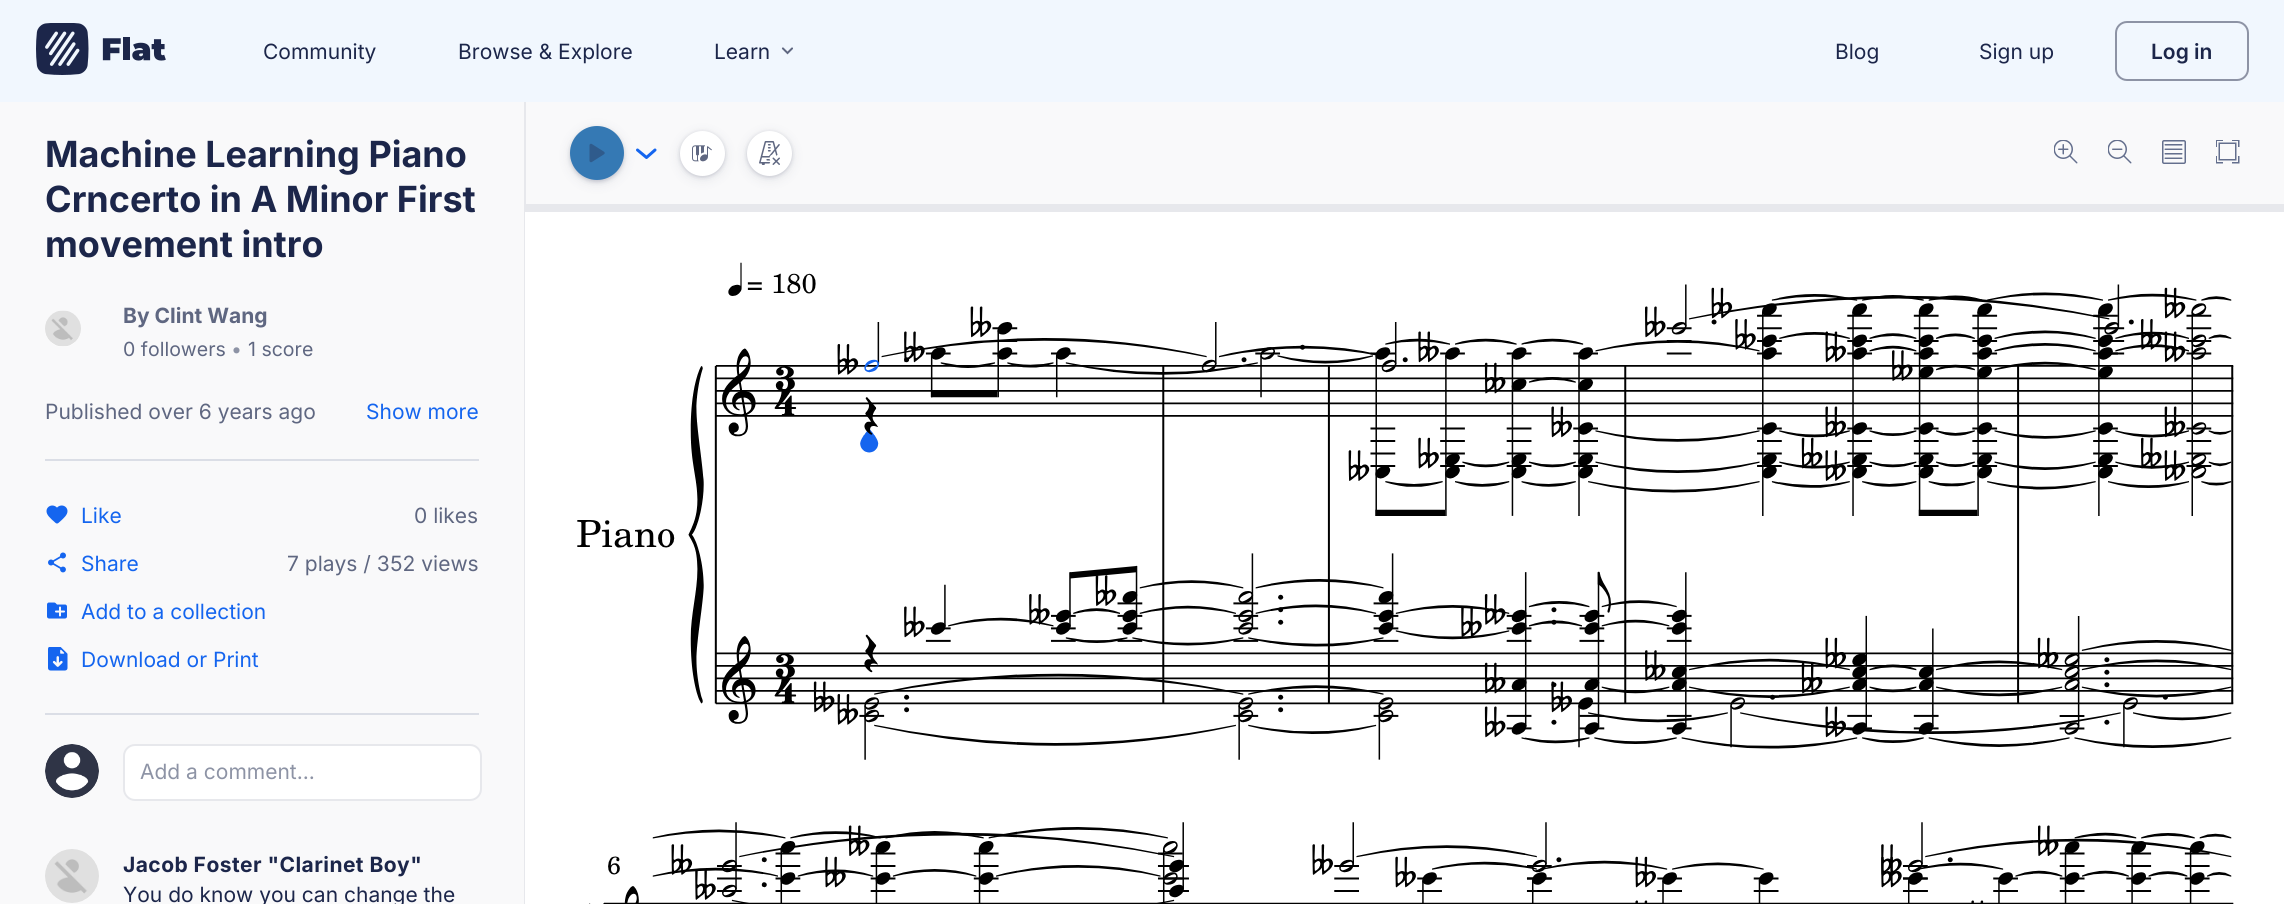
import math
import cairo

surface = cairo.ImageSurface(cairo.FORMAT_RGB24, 2284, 904)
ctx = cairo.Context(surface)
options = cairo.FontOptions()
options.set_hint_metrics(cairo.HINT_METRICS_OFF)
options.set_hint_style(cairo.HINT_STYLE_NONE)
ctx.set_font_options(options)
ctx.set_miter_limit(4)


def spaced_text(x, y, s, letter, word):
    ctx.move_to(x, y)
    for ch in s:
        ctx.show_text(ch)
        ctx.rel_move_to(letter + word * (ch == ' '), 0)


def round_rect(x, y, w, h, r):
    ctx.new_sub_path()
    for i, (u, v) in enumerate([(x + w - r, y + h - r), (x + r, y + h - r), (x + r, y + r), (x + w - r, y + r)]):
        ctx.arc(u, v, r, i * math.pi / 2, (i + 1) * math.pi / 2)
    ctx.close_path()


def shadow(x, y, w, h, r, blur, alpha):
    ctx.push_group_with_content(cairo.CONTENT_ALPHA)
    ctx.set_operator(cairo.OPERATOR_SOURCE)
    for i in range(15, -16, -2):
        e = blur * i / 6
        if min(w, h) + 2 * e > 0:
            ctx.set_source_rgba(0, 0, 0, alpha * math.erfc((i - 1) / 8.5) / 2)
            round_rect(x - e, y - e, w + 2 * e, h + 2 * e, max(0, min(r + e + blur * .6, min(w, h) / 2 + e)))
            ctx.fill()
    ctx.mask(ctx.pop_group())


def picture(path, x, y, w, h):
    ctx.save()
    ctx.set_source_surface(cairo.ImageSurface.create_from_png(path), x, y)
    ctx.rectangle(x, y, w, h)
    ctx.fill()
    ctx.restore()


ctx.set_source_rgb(0.945, 0.965, 0.996)
ctx.paint()
picture("img1.png", 36, 23, 130, 52)
ctx.select_font_face("Inter")
ctx.set_font_size(21)
ctx.set_source_rgb(0.11, 0.149, 0.29)
ctx.move_to(263, 59)
ctx.show_text("Community")
ctx.move_to(458, 59)
ctx.show_text("Browse & Explore")
ctx.move_to(714, 59)
ctx.show_text("Learn")
picture("img2.png", 781, 47, 12, 8)
ctx.move_to(1835, 59)
ctx.show_text("Blog")
ctx.move_to(1979, 59)
ctx.show_text("Sign up")
round_rect(2116, 22, 132, 58, 11)
ctx.set_source_rgb(0.553, 0.576, 0.647)
ctx.stroke()
ctx.select_font_face("Inter SemiBold")
ctx.set_source_rgb(0.11, 0.149, 0.29)
ctx.move_to(2151, 59)
ctx.show_text("Log in")
ctx.set_source_rgb(0.976, 0.976, 0.98)
ctx.rectangle(0, 102, 524, 802)
ctx.fill()
ctx.set_source_rgb(0.906, 0.91, 0.925)
ctx.rectangle(524, 102, 2, 802)
ctx.fill()
ctx.select_font_face("Inter", cairo.FONT_SLANT_NORMAL, cairo.FONT_WEIGHT_BOLD)
ctx.set_font_size(36)
ctx.set_source_rgb(0.11, 0.149, 0.29)
ctx.move_to(45, 167)
ctx.show_text("Machine Learning Piano")
ctx.move_to(45, 212)
ctx.show_text("Crncerto in A Minor First")
ctx.move_to(45, 257)
ctx.show_text("movement intro")
ctx.set_source_rgb(1, 1, 1)
ctx.new_path()
ctx.arc(63, 329, 18, 0, 2 * math.pi)
ctx.fill()
picture("img3.png", 45, 310, 36, 37)
ctx.set_font_size(21)
ctx.set_source_rgb(0.373, 0.404, 0.506)
ctx.move_to(123, 323)
ctx.show_text("By Clint Wang")
ctx.select_font_face("Inter")
ctx.set_font_size(19.5)
ctx.move_to(123, 356)
ctx.show_text("0 followers")
ctx.set_source_rgb(0.553, 0.576, 0.647)
ctx.move_to(231, 356)
ctx.show_text("•")
ctx.set_source_rgb(0.373, 0.404, 0.506)
ctx.move_to(248, 356)
ctx.show_text("1 score")
ctx.set_font_size(21)
ctx.move_to(45, 419)
ctx.show_text("Published over 6 years ago")
ctx.set_source_rgb(0.082, 0.396, 0.937)
ctx.move_to(366, 419)
ctx.show_text("Show more")
ctx.set_source_rgb(0.859, 0.871, 0.902)
ctx.rectangle(45, 459, 434, 2)
ctx.fill()
picture("img4.png", 46, 505, 22, 19)
ctx.set_source_rgb(0.082, 0.396, 0.937)
ctx.move_to(81, 523)
ctx.show_text("Like")
ctx.set_source_rgb(0.373, 0.404, 0.506)
ctx.move_to(414, 523)
ctx.show_text("0 likes")
picture("img5.png", 48, 552, 18, 21)
ctx.set_source_rgb(0.082, 0.396, 0.937)
ctx.move_to(81, 571)
ctx.show_text("Share")
ctx.set_source_rgb(0.373, 0.404, 0.506)
ctx.move_to(287, 571)
ctx.show_text("7 plays / 352 views")
picture("img6.png", 47, 602, 20, 17)
ctx.set_source_rgb(0.082, 0.396, 0.937)
ctx.move_to(81, 619)
ctx.show_text("Add to a collection")
picture("img7.png", 48, 647, 20, 24)
ctx.move_to(81, 667)
ctx.show_text("Download or Print")
ctx.set_source_rgb(0.859, 0.871, 0.902)
ctx.rectangle(45, 713, 434, 2)
ctx.fill()
ctx.set_source_rgb(1, 1, 1)
ctx.arc(72, 771, 27, 0, 2 * math.pi)
ctx.fill()
picture("img8.png", 45, 744, 54, 54)
round_rect(124, 745, 357, 55, 11)
ctx.fill_preserve()
ctx.set_source_rgb(0.906, 0.91, 0.925)
ctx.stroke()
ctx.set_source_rgb(0.553, 0.576, 0.647)
ctx.move_to(140, 779)
ctx.show_text("Add a comment...")
ctx.set_source_rgb(1, 1, 1)
ctx.new_path()
ctx.arc(72, 876, 27, 0, 2 * math.pi)
ctx.fill()
picture("img9.png", 45, 849, 54, 54)
ctx.select_font_face("Inter", cairo.FONT_SLANT_NORMAL, cairo.FONT_WEIGHT_BOLD)
ctx.set_source_rgb(0.11, 0.149, 0.29)
spaced_text(123, 872, "Jacob Foster \"Clarinet Boy\"", 0.45, 0)
ctx.select_font_face("Inter")
ctx.move_to(123, 902)
ctx.show_text("You do know you can change the")
ctx.set_source_rgb(0.976, 0.976, 0.98)
ctx.rectangle(526, 102, 1758, 102)
ctx.fill()
ctx.set_source_rgb(0.157, 0.188, 0.31)
shadow(570, 128, 54, 54, 27, 2, 0.2)
shadow(570, 129, 54, 54, 27, 6, 0.1)
ctx.set_source_rgb(0.208, 0.475, 0.706)
ctx.arc(597, 153, 27, 0, 2 * math.pi)
ctx.fill()
picture("img10.png", 589, 143, 16, 20)
ctx.new_path()
ctx.move_to(637.5, 150)
ctx.line_to(646.5, 157.5)
ctx.line_to(655, 150)
ctx.set_source_rgb(0.082, 0.396, 0.937)
ctx.set_line_width(3)
ctx.set_line_cap(cairo.LINE_CAP_ROUND)
ctx.set_line_join(cairo.LINE_JOIN_ROUND)
ctx.stroke()
ctx.set_source_rgb(0.157, 0.188, 0.31)
shadow(680, 132, 45, 45, 22.5, 2, 0.2)
shadow(680, 134, 45, 45, 22.5, 6, 0.1)
ctx.set_source_rgb(1, 1, 1)
ctx.arc(702.5, 153.5, 22.5, 0, 2 * math.pi)
ctx.fill()
picture("img11.png", 692, 145, 20, 17)
ctx.set_source_rgb(0.157, 0.188, 0.31)
shadow(747, 132, 45, 45, 22.5, 2, 0.2)
shadow(747, 134, 45, 45, 22.5, 6, 0.1)
ctx.set_source_rgb(1, 1, 1)
ctx.arc(769.5, 153.5, 22.5, 0, 2 * math.pi)
ctx.fill()
picture("img12.png", 759, 141, 21, 24)
picture("img13.png", 2054, 140, 24, 24)
picture("img14.png", 2108, 140, 24, 24)
picture("img15.png", 2162, 140, 24, 24)
picture("img16.png", 2216, 140, 24, 24)
ctx.set_source_rgb(0.906, 0.91, 0.925)
ctx.rectangle(525, 204, 1759, 8)
ctx.fill()
ctx.set_source_rgb(1, 1, 1)
ctx.rectangle(525, 212, 1759, 692)
ctx.fill()
picture("img17.png", 577, 262, 1657, 498)
picture("img18.png", 589, 822, 1645, 82)
surface.write_to_png("page.png")
